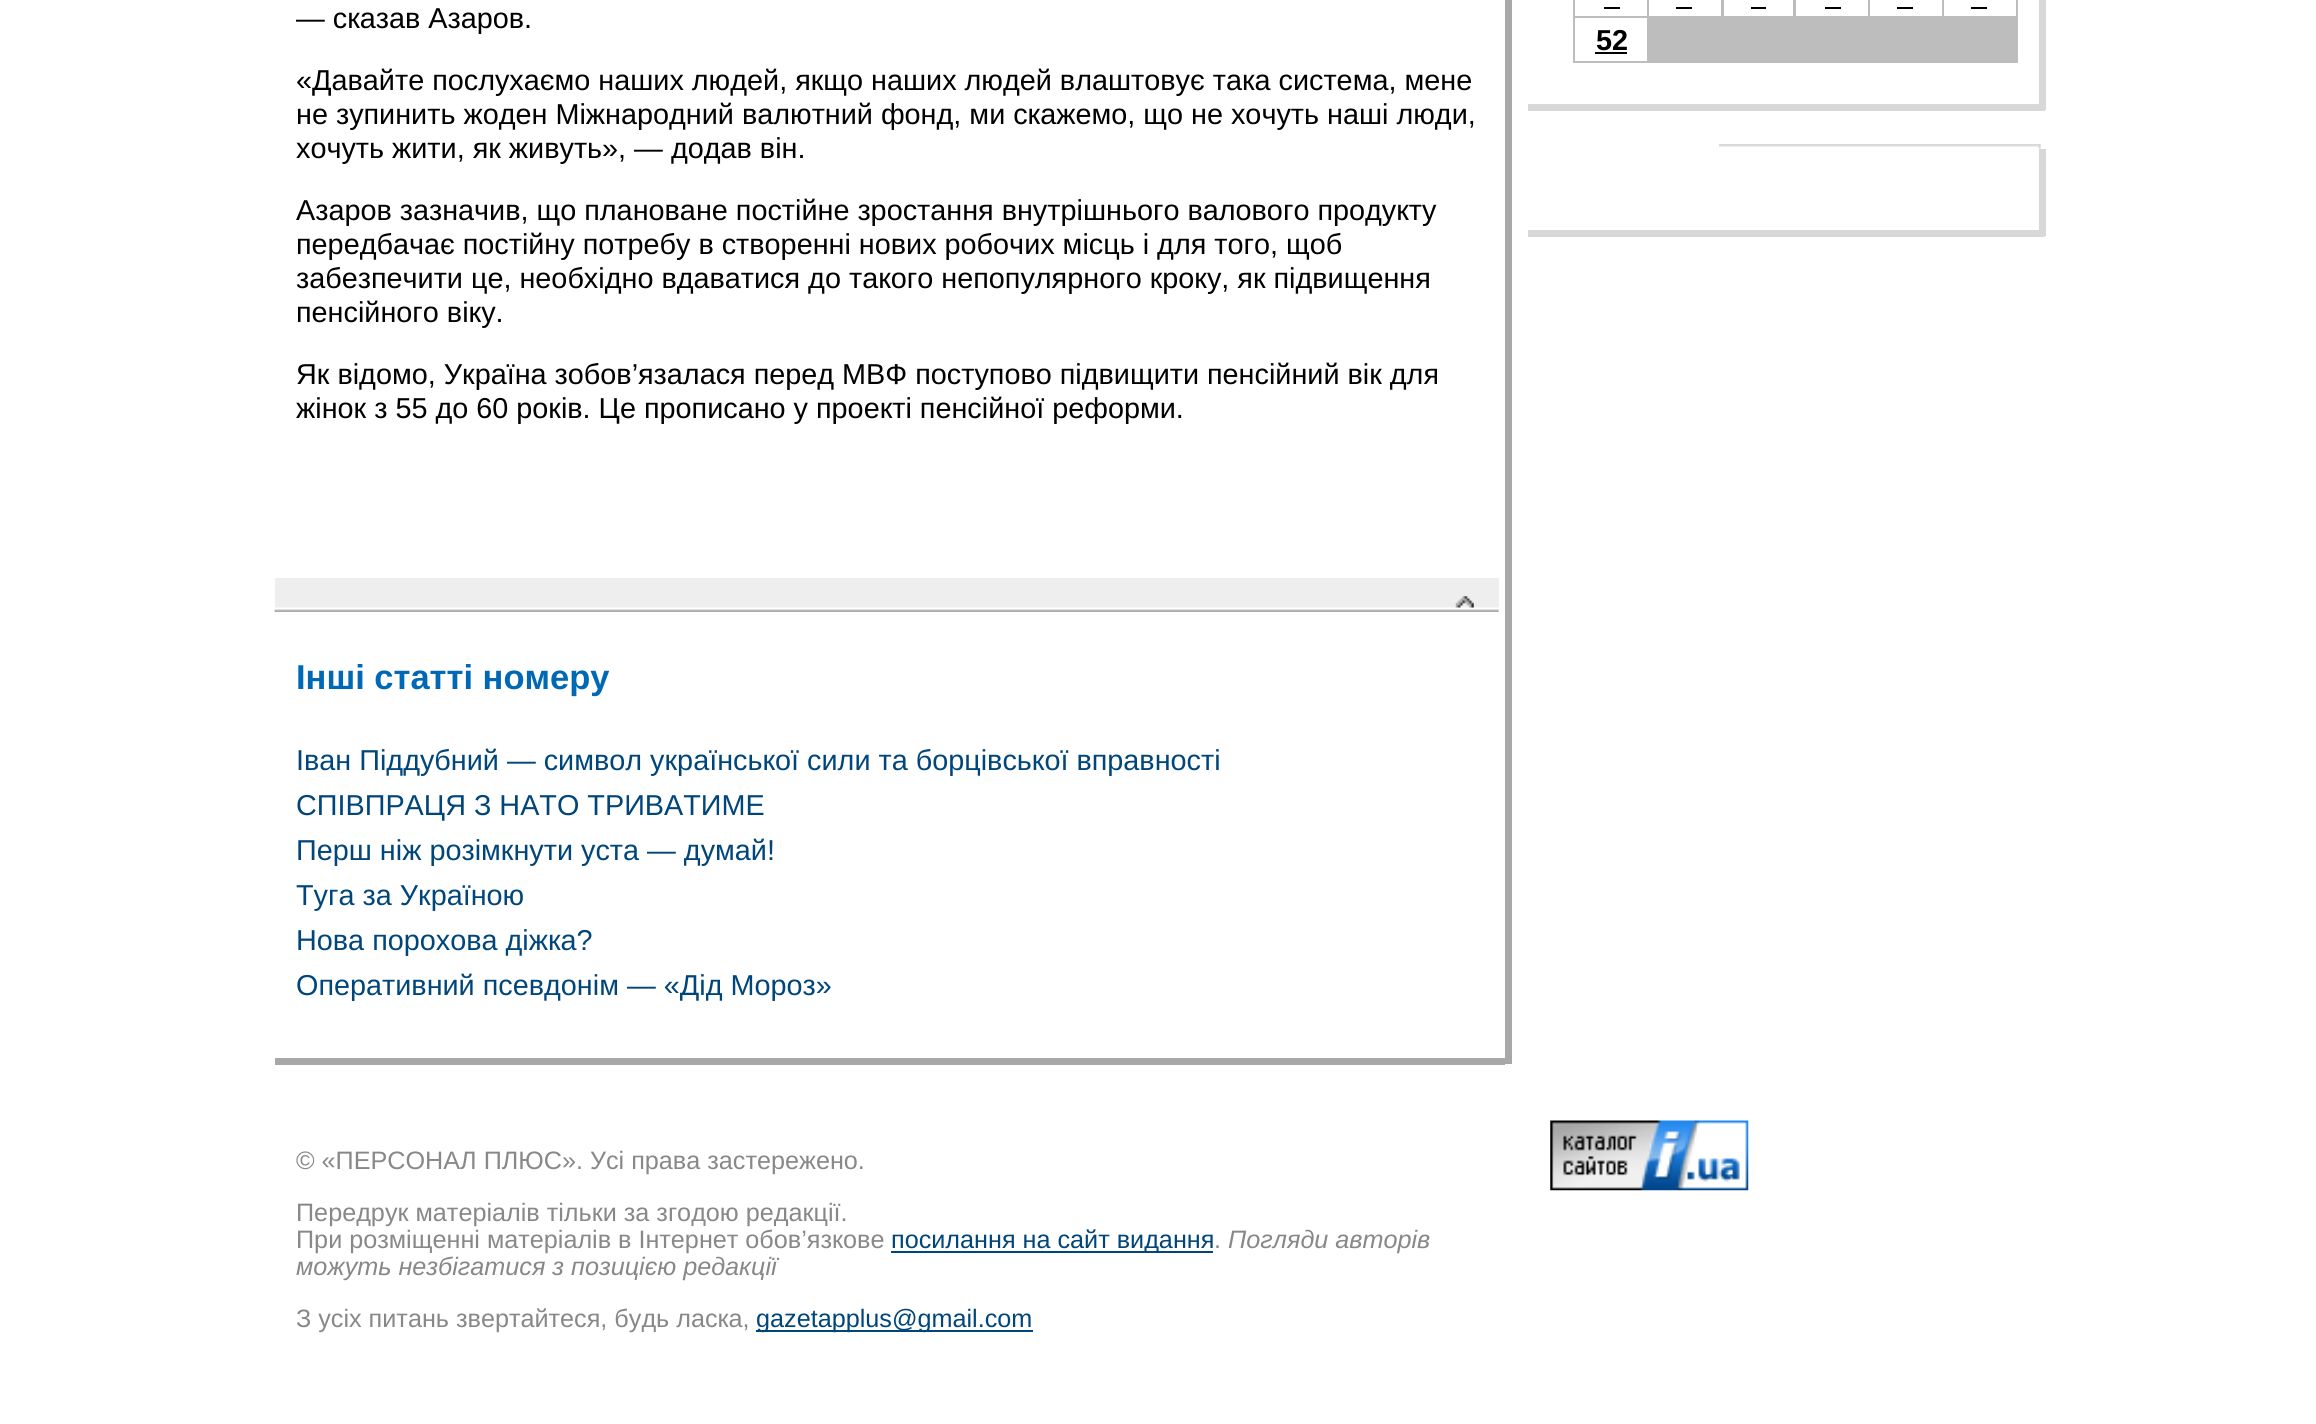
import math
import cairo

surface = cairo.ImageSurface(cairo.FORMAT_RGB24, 2316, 1424)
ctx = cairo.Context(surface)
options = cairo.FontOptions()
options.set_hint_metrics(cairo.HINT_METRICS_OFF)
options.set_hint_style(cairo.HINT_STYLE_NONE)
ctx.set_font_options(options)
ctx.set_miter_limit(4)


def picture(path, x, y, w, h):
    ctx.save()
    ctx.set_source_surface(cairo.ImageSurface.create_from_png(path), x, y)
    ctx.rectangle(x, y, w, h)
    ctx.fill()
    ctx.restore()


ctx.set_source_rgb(1, 1, 1)
ctx.paint()
ctx.set_source_rgb(0.659, 0.659, 0.659)
ctx.rectangle(275, 1058, 1230, 7)
ctx.fill()
ctx.select_font_face("Liberation Sans")
ctx.set_font_size(28.8)
ctx.set_source_rgb(0, 0, 0)
ctx.move_to(296, 28)
ctx.show_text("— сказав Азаров.")
ctx.move_to(296, 90)
ctx.show_text("«Давайте послухаємо наших людей, якщо наших людей влаштовує така система, мене")
ctx.move_to(296, 124)
ctx.show_text("не зупинить жоден Міжнародний валютний фонд, ми скажемо, що не хочуть наші люди,")
ctx.move_to(296, 158)
ctx.show_text("хочуть жити, як живуть», — додав він.")
ctx.move_to(296, 220)
ctx.show_text("Азаров зазначив, що плановане постійне зростання внутрішнього валового продукту")
ctx.move_to(296, 254)
ctx.show_text("передбачає постійну потребу в створенні нових робочих місць і для того, щоб")
ctx.move_to(296, 288)
ctx.show_text("забезпечити це, необхідно вдаватися до такого непопулярного кроку, як підвищення")
ctx.move_to(296, 322)
ctx.show_text("пенсійного віку.")
ctx.move_to(296, 384)
ctx.show_text("Як відомо, Україна зобов’язалася перед МВФ поступово підвищити пенсійний вік для")
ctx.move_to(296, 418)
ctx.show_text("жінок з 55 до 60 років. Це прописано у проекті пенсійної реформи.")
ctx.set_source_rgb(0.933, 0.933, 0.933)
ctx.rectangle(275, 578, 1224, 34)
ctx.fill()
picture("img1.png", 274, 607, 1225, 5)
picture("img2.png", 1455, 596, 19, 12)
ctx.select_font_face("Liberation Sans", cairo.FONT_SLANT_NORMAL, cairo.FONT_WEIGHT_BOLD)
ctx.set_font_size(34.5)
ctx.set_source_rgb(0, 0.408, 0.71)
ctx.move_to(296, 689)
ctx.show_text("Інші статті номеру")
ctx.select_font_face("Liberation Sans")
ctx.set_font_size(28.8)
ctx.set_source_rgb(0, 0.275, 0.478)
ctx.move_to(296, 770)
ctx.show_text("Іван Піддубний — символ української сили та борцівської вправності")
ctx.move_to(296, 815)
ctx.show_text("СПІВПРАЦЯ З НАТО ТРИВАТИМЕ")
ctx.move_to(296, 860)
ctx.show_text("Перш ніж розімкнути уста — думай!")
ctx.move_to(296, 905)
ctx.show_text("Туга за Україною")
ctx.move_to(296, 950)
ctx.show_text("Нова порохова діжка?")
ctx.move_to(296, 995)
ctx.show_text("Оперативний псевдонім — «Дід Мороз»")
ctx.set_source_rgb(0.659, 0.659, 0.659)
ctx.rectangle(1505, 0, 7, 1064)
ctx.fill()
ctx.set_source_rgb(0.847, 0.847, 0.847)
ctx.rectangle(2039, 0, 7, 110)
ctx.fill()
ctx.rectangle(1528, 104, 517, 7)
ctx.fill()
ctx.set_source_rgb(0.741, 0.741, 0.741)
ctx.rectangle(1573, 0, 445, 63)
ctx.fill()
ctx.set_source_rgb(1, 1, 1)
ctx.rectangle(1575, 0, 72, 16)
ctx.fill()
ctx.set_source_rgb(0, 0, 0)
ctx.rectangle(1604, 7, 16, 2)
ctx.fill()
ctx.set_source_rgb(1, 1, 1)
ctx.rectangle(1649, 0, 72, 16)
ctx.fill()
ctx.set_source_rgb(0, 0, 0)
ctx.rectangle(1676, 7, 16, 2)
ctx.fill()
ctx.set_source_rgb(1, 1, 1)
ctx.rectangle(1724, 0, 69, 16)
ctx.fill()
ctx.set_source_rgb(0, 0, 0)
ctx.rectangle(1751, 7, 15, 2)
ctx.fill()
ctx.set_source_rgb(1, 1, 1)
ctx.rectangle(1796, 0, 72, 16)
ctx.fill()
ctx.set_source_rgb(0, 0, 0)
ctx.rectangle(1825, 7, 16, 2)
ctx.fill()
ctx.set_source_rgb(1, 1, 1)
ctx.rectangle(1870, 0, 72, 16)
ctx.fill()
ctx.set_source_rgb(0, 0, 0)
ctx.rectangle(1897, 7, 16, 2)
ctx.fill()
ctx.set_source_rgb(1, 1, 1)
ctx.rectangle(1944, 0, 72, 16)
ctx.fill()
ctx.set_source_rgb(0, 0, 0)
ctx.rectangle(1971, 7, 16, 2)
ctx.fill()
ctx.set_source_rgb(1, 1, 1)
ctx.rectangle(1575, 18, 72, 43)
ctx.fill()
ctx.select_font_face("Liberation Sans", cairo.FONT_SLANT_NORMAL, cairo.FONT_WEIGHT_BOLD)
ctx.set_source_rgb(0, 0, 0)
ctx.move_to(1596, 50)
ctx.show_text("52")
ctx.rectangle(1595, 52, 32, 2)
ctx.fill()
picture("img3.png", 1719, 144, 323, 5)
ctx.set_source_rgb(0.847, 0.847, 0.847)
ctx.rectangle(2039, 149, 7, 87)
ctx.fill()
ctx.rectangle(1528, 230, 517, 7)
ctx.fill()
ctx.select_font_face("Liberation Sans")
ctx.set_font_size(25.2)
ctx.set_source_rgb(0.533, 0.533, 0.533)
ctx.move_to(296, 1169)
ctx.show_text("© «ПЕРСОНАЛ ПЛЮС». Усі права застережено.")
ctx.move_to(296, 1221)
ctx.show_text("Передрук матеріалів тільки за згодою редакції.")
ctx.move_to(296, 1248)
ctx.show_text("При розміщенні матеріалів")
ctx.move_to(618, 1248)
ctx.show_text("в Інтернет обов’язкове")
ctx.set_source_rgb(0, 0.275, 0.478)
ctx.rectangle(891, 1251, 322, 2)
ctx.fill()
ctx.move_to(891, 1248)
ctx.show_text("посилання на сайт видання")
ctx.set_source_rgb(0.533, 0.533, 0.533)
ctx.move_to(1214, 1248)
ctx.show_text(".")
ctx.select_font_face("Liberation Sans", cairo.FONT_SLANT_ITALIC)
ctx.move_to(1228, 1248)
ctx.show_text("Погляди авторів")
ctx.move_to(296, 1275)
ctx.show_text("можуть незбігатися з позицією редакції")
ctx.select_font_face("Liberation Sans")
ctx.move_to(296, 1327)
ctx.show_text("З усіх питань звертайтеся, будь ласка,")
ctx.set_source_rgb(0, 0.275, 0.478)
ctx.rectangle(756, 1330, 277, 2)
ctx.fill()
ctx.move_to(756, 1327)
ctx.show_text("gazetapplus@gmail.com")
picture("img4.png", 1550, 1120, 199, 71)
surface.write_to_png("page.png")
